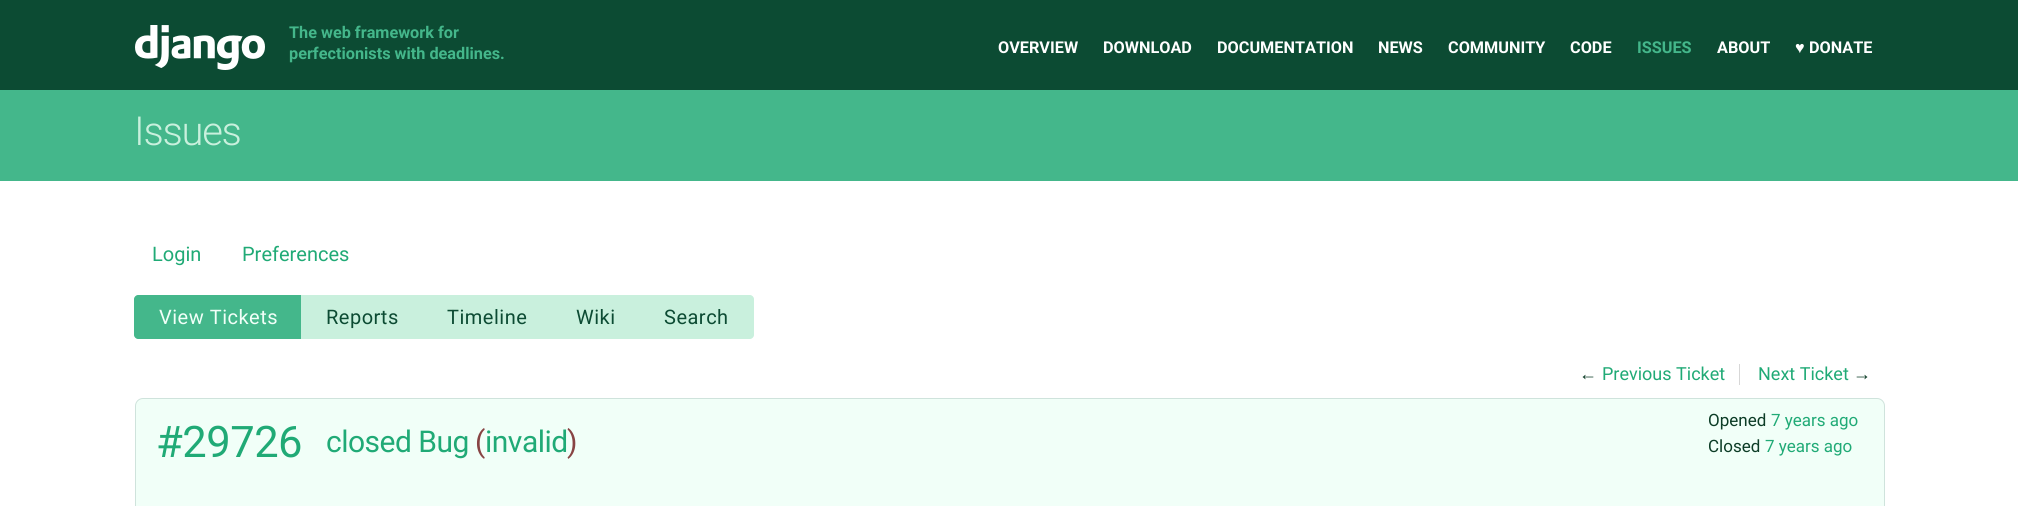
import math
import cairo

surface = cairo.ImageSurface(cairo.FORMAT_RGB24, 2018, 506)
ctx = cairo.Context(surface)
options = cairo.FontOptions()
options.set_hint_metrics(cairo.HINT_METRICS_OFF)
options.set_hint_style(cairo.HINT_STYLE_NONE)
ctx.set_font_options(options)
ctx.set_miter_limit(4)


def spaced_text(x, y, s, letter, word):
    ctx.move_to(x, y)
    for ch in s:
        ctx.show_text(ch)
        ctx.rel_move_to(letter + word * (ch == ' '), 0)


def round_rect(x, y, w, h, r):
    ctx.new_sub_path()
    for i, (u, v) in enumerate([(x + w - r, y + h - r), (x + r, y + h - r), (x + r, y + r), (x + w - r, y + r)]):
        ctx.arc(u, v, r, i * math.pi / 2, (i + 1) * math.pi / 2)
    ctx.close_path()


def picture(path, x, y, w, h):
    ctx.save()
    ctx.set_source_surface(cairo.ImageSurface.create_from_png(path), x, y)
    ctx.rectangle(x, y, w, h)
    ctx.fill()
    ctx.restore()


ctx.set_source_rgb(0.267, 0.718, 0.545)
ctx.paint()
ctx.set_source_rgb(0.047, 0.294, 0.2)
ctx.rectangle(0, 0, 2018, 90)
ctx.fill()
picture("img1.png", 135, 25, 130, 45)
ctx.select_font_face("Roboto", cairo.FONT_SLANT_NORMAL, cairo.FONT_WEIGHT_BOLD)
ctx.set_font_size(16.25)
ctx.set_source_rgb(0.267, 0.718, 0.545)
ctx.move_to(289, 38)
ctx.show_text("The web framework for")
ctx.move_to(289, 59)
ctx.show_text("perfectionists with deadlines.")
ctx.set_source_rgb(1, 1, 1)
ctx.move_to(998, 53)
ctx.show_text("OVERVIEW")
ctx.move_to(1103, 53)
ctx.show_text("DOWNLOAD")
ctx.move_to(1217, 53)
ctx.show_text("DOCUMENTATION")
ctx.move_to(1378, 53)
ctx.show_text("NEWS")
ctx.move_to(1448, 53)
ctx.show_text("COMMUNITY")
ctx.move_to(1570, 53)
ctx.show_text("CODE")
ctx.set_source_rgb(0.267, 0.718, 0.545)
ctx.move_to(1637, 53)
ctx.show_text("ISSUES")
ctx.set_source_rgb(1, 1, 1)
ctx.move_to(1717, 53)
ctx.show_text("ABOUT")
ctx.select_font_face("Liberation Sans", cairo.FONT_SLANT_NORMAL, cairo.FONT_WEIGHT_BOLD)
ctx.move_to(1795, 53)
ctx.show_text("♥")
ctx.select_font_face("Roboto", cairo.FONT_SLANT_NORMAL, cairo.FONT_WEIGHT_BOLD)
ctx.move_to(1809, 53)
ctx.show_text("DONATE")
ctx.select_font_face("Roboto Light")
ctx.set_font_size(40)
ctx.set_source_rgb(0.788, 0.941, 0.867)
spaced_text(134, 145, "Issues", -1.25, 0)
ctx.set_source_rgb(1, 1, 1)
ctx.rectangle(0, 181, 2018, 325)
ctx.fill()
ctx.select_font_face("Roboto")
ctx.set_font_size(20)
ctx.set_source_rgb(0.125, 0.667, 0.463)
ctx.move_to(152, 261)
ctx.show_text("Login")
ctx.move_to(242, 261)
ctx.show_text("Preferences")
ctx.set_source_rgb(0.267, 0.718, 0.545)
ctx.new_path()
ctx.move_to(138, 295)
ctx.line_to(304, 295)
ctx.line_to(304, 339)
ctx.line_to(138, 339)
ctx.curve_to(136, 339, 134, 337, 134, 335)
ctx.line_to(134, 299)
ctx.curve_to(134, 297, 136, 295, 138, 295)
ctx.close_path()
ctx.fill()
ctx.set_source_rgb(0.945, 1, 0.969)
spaced_text(159, 324, "View Tickets", 0.5, 0)
ctx.set_source_rgb(0.788, 0.941, 0.867)
ctx.rectangle(301, 295, 338, 44)
ctx.fill()
ctx.set_source_rgb(0.047, 0.294, 0.2)
spaced_text(326, 324, "Reports", 0.5, 0)
spaced_text(447, 324, "Timeline", 0.5, 0)
spaced_text(576, 324, "Wiki", 0.5, 0)
ctx.set_source_rgb(0.788, 0.941, 0.867)
ctx.new_path()
ctx.move_to(639, 295)
ctx.line_to(750, 295)
ctx.curve_to(752, 295, 754, 297, 754, 299)
ctx.line_to(754, 335)
ctx.curve_to(754, 337, 752, 339, 750, 339)
ctx.line_to(639, 339)
ctx.close_path()
ctx.fill()
ctx.set_source_rgb(0.047, 0.294, 0.2)
spaced_text(664, 324, "Search", 0.5, 0)
ctx.set_source_rgb(0.843, 0.843, 0.843)
ctx.rectangle(1739, 364, 1, 21)
ctx.fill()
ctx.select_font_face("Liberation Sans")
ctx.set_font_size(18)
ctx.set_source_rgb(0.047, 0.235, 0.149)
ctx.move_to(1579, 380)
ctx.show_text("←")
ctx.select_font_face("Roboto")
ctx.set_source_rgb(0.125, 0.667, 0.463)
ctx.move_to(1602, 380)
ctx.show_text("Previous Ticket")
ctx.move_to(1758, 380)
ctx.show_text("Next Ticket")
ctx.select_font_face("Liberation Sans")
ctx.set_source_rgb(0.047, 0.235, 0.149)
ctx.move_to(1853, 380)
ctx.show_text("→")
ctx.set_source_rgb(0.945, 1, 0.969)
round_rect(135.5, 398.5, 1749, 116, 7.5)
ctx.fill_preserve()
ctx.set_source_rgb(0.812, 0.89, 0.863)
ctx.set_line_width(1)
ctx.stroke()
ctx.select_font_face("Roboto")
ctx.set_font_size(43.5)
ctx.set_source_rgb(0.125, 0.667, 0.463)
spaced_text(156, 457, "#29726", -0.5, 0)
ctx.set_font_size(30)
spaced_text(326, 452, "closed Bug", -0.5, 0)
ctx.set_source_rgb(0.533, 0.267, 0.267)
spaced_text(475, 452, "(", -0.5, 0)
ctx.set_source_rgb(0.125, 0.667, 0.463)
spaced_text(485, 452, "invalid", -0.5, 0)
ctx.set_source_rgb(0.533, 0.267, 0.267)
spaced_text(567, 452, ")", -0.5, 0)
ctx.set_font_size(17)
ctx.set_source_rgb(0.047, 0.235, 0.149)
ctx.move_to(1708, 426)
ctx.show_text("Opened")
ctx.set_source_rgb(0.125, 0.667, 0.463)
ctx.move_to(1771, 426)
ctx.show_text("7 years ago")
ctx.set_source_rgb(0.047, 0.235, 0.149)
ctx.move_to(1708, 452)
ctx.show_text("Closed")
ctx.set_source_rgb(0.125, 0.667, 0.463)
ctx.move_to(1765, 452)
ctx.show_text("7 years ago")
surface.write_to_png("page.png")
